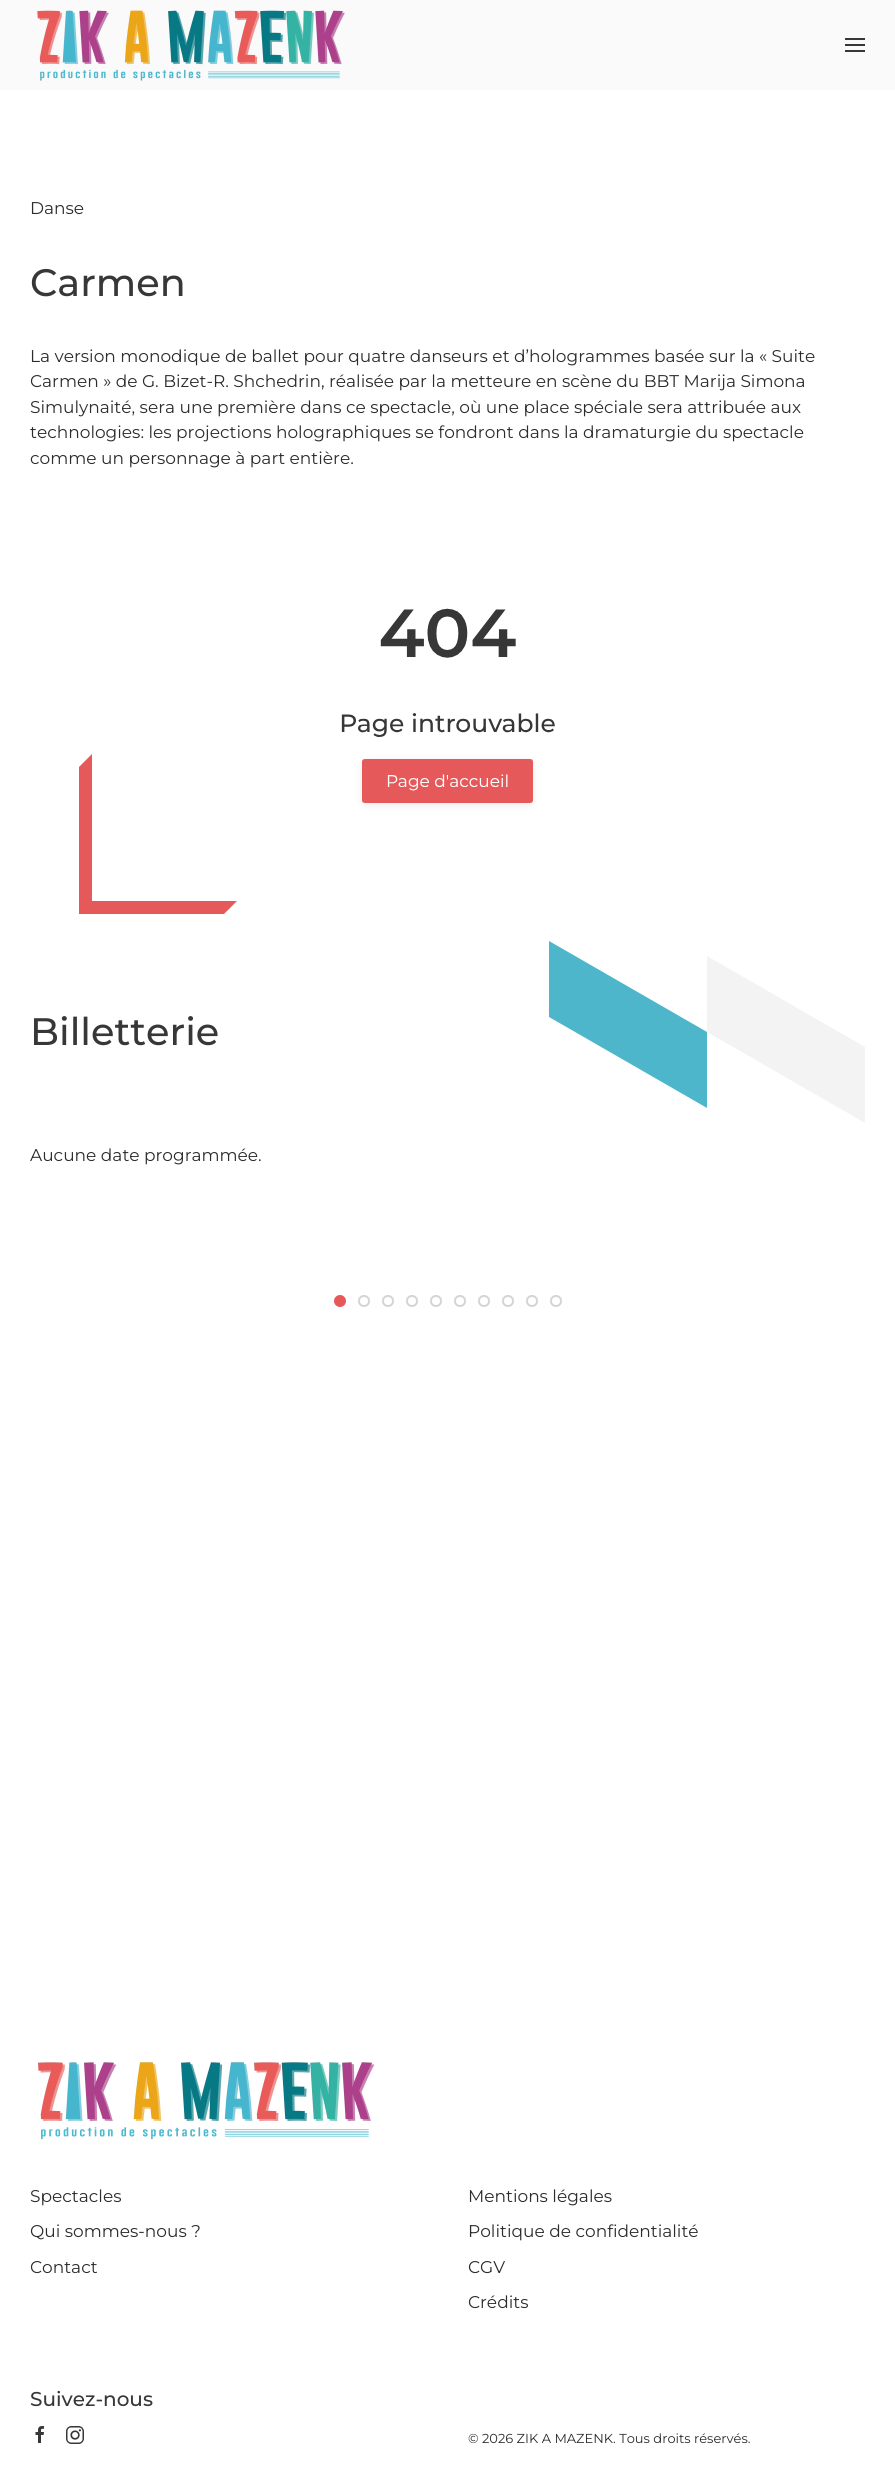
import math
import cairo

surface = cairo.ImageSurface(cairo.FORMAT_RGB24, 895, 2487)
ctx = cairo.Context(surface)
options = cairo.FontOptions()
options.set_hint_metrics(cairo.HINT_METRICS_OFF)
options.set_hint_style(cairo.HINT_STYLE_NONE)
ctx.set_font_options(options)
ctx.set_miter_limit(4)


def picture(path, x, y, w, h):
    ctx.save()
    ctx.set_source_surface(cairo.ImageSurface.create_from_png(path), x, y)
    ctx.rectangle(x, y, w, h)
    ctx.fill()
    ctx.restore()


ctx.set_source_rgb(0.98, 0.98, 0.98)
ctx.paint()
picture("img1.png", 37, 10, 308, 71)
ctx.set_source_rgb(0.216, 0.216, 0.216)
ctx.rectangle(845, 38, 20, 2)
ctx.fill()
ctx.rectangle(845, 44, 20, 2)
ctx.fill()
ctx.rectangle(845, 50, 20, 2)
ctx.fill()
ctx.set_source_rgb(1, 1, 1)
ctx.rectangle(0, 90, 895, 2397)
ctx.fill()
ctx.select_font_face("Montserrat Thin")
ctx.set_font_size(17)
ctx.set_source_rgb(0.173, 0.173, 0.173)
ctx.move_to(30, 214)
ctx.show_text("Danse")
ctx.select_font_face("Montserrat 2 Thin")
ctx.set_font_size(38.25)
ctx.set_source_rgb(0.216, 0.216, 0.216)
ctx.move_to(30, 296)
ctx.show_text("Carmen")
ctx.select_font_face("Montserrat Thin")
ctx.set_font_size(17)
ctx.set_source_rgb(0.173, 0.173, 0.173)
ctx.move_to(30, 362)
ctx.show_text("La version monodique de ballet pour quatre danseurs et d’hologrammes basée sur la « Suite")
ctx.move_to(30, 387)
ctx.show_text("Carmen » de G. Bizet-R. Shchedrin, réalisée par la metteure en scène du BBT Marija Simona")
ctx.move_to(30, 413)
ctx.show_text("Simulynaité, sera une première dans ce spectacle, où une place spéciale sera attribuée aux")
ctx.move_to(30, 438)
ctx.show_text("technologies: les projections holographiques se fondront dans la dramaturgie du spectacle")
ctx.move_to(30, 464)
ctx.show_text("comme un personnage à part entière.")
ctx.set_source_rgb(0.898, 0.349, 0.353)
ctx.new_path()
ctx.move_to(319, 674)
ctx.line_to(319, 819)
ctx.line_to(224, 914)
ctx.line_to(79, 914)
ctx.line_to(79, 767)
ctx.line_to(172, 674)
ctx.close_path()
ctx.fill()
picture("img2.png", 92, 608, 463, 293)
ctx.set_source_rgb(0.953, 0.953, 0.953)
ctx.new_path()
ctx.move_to(865, 1047)
ctx.line_to(865, 1123)
ctx.line_to(707, 1032)
ctx.line_to(707, 956)
ctx.close_path()
ctx.fill()
ctx.set_source_rgb(0.302, 0.714, 0.796)
ctx.new_path()
ctx.move_to(707, 1032)
ctx.line_to(707, 1108)
ctx.line_to(549, 1017)
ctx.line_to(549, 941)
ctx.close_path()
ctx.fill()
ctx.select_font_face("Montserrat 2 Thin")
ctx.set_font_size(38.25)
ctx.set_source_rgb(0.216, 0.216, 0.216)
ctx.move_to(30, 1045)
ctx.show_text("Billetterie")
ctx.select_font_face("Montserrat Thin")
ctx.set_font_size(17)
ctx.set_source_rgb(0.173, 0.173, 0.173)
ctx.move_to(30, 1161)
ctx.show_text("Aucune date programmée.")
ctx.set_source_rgb(0.898, 0.349, 0.353)
ctx.new_path()
ctx.arc(340, 1301, 6, 0, 2 * math.pi)
ctx.fill()
ctx.arc(364, 1301, 5, 0, 2 * math.pi)
ctx.set_source_rgb(0.831, 0.831, 0.831)
ctx.stroke()
ctx.arc(388, 1301, 5, 0, 2 * math.pi)
ctx.stroke()
ctx.arc(412, 1301, 5, 0, 2 * math.pi)
ctx.stroke()
ctx.arc(436, 1301, 5, 0, 2 * math.pi)
ctx.stroke()
ctx.arc(460, 1301, 5, 0, 2 * math.pi)
ctx.stroke()
ctx.arc(484, 1301, 5, 0, 2 * math.pi)
ctx.stroke()
ctx.arc(508, 1301, 5, 0, 2 * math.pi)
ctx.stroke()
ctx.arc(532, 1301, 5, 0, 2 * math.pi)
ctx.stroke()
ctx.arc(556, 1301, 5, 0, 2 * math.pi)
ctx.stroke()
picture("img3.png", 38, 2062, 337, 78)
ctx.set_source_rgb(0.173, 0.173, 0.173)
ctx.move_to(30, 2202)
ctx.show_text("Spectacles")
ctx.move_to(30, 2237)
ctx.show_text("Qui sommes-nous ?")
ctx.move_to(30, 2273)
ctx.show_text("Contact")
ctx.move_to(468, 2202)
ctx.show_text("Mentions légales")
ctx.move_to(468, 2237)
ctx.show_text("Politique de confidentialité")
ctx.move_to(468, 2273)
ctx.show_text("CGV")
ctx.move_to(468, 2308)
ctx.show_text("Crédits")
ctx.select_font_face("Montserrat 2 Thin")
ctx.set_font_size(20)
ctx.set_source_rgb(0.216, 0.216, 0.216)
ctx.move_to(30, 2406)
ctx.show_text("Suivez-nous")
picture("img4.png", 35, 2426, 9, 17)
picture("img5.png", 66, 2426, 18, 18)
ctx.select_font_face("Montserrat Thin")
ctx.set_font_size(13)
ctx.set_source_rgb(0.173, 0.173, 0.173)
ctx.move_to(468, 2443)
ctx.show_text("© 2026 ZIK A MAZENK. Tous droits réservés.")
surface.write_to_png("page.png")
